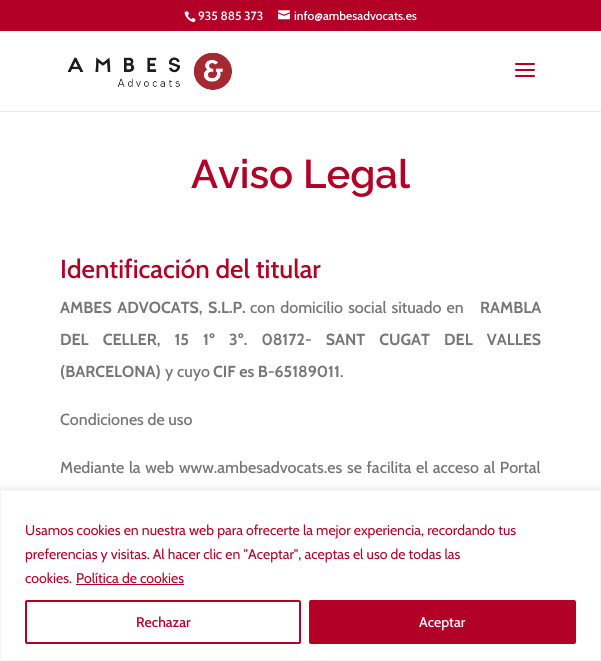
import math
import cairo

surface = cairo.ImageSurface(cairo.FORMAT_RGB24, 601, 661)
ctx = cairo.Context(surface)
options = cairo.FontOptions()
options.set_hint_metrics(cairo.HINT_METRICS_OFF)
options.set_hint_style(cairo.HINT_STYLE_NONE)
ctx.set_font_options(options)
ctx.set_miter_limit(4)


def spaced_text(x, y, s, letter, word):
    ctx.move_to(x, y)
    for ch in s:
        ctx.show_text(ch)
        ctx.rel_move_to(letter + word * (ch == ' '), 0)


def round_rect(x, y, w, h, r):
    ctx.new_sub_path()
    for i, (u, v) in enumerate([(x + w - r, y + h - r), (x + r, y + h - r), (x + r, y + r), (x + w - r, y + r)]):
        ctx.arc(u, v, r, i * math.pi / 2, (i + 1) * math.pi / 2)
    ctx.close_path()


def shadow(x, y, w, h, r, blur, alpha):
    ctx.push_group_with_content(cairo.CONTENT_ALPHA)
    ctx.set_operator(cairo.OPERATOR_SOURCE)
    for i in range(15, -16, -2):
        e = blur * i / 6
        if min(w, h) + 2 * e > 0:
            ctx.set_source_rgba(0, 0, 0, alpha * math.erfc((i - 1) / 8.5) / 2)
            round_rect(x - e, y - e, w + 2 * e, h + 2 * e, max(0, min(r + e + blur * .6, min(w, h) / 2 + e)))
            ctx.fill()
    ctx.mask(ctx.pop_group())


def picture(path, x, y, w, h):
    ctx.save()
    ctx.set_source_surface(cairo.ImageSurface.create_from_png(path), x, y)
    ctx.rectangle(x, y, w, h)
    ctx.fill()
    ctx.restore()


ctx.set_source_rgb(1, 1, 1)
ctx.paint()
ctx.set_source_rgb(0.698, 0, 0.149)
ctx.rectangle(0, 0, 601, 31)
ctx.fill()
picture("img1.png", 184, 11, 12, 12)
ctx.select_font_face("Cabin SemiBold")
ctx.set_font_size(12)
ctx.set_source_rgb(1, 1, 1)
ctx.move_to(198, 20)
ctx.show_text("935 885 373")
picture("img2.png", 278, 10, 12, 10)
ctx.move_to(294, 20)
ctx.show_text("info@ambesadvocats.es")
ctx.set_source_rgb(0.902, 0.902, 0.902)
ctx.rectangle(0, 111, 601, 1)
ctx.fill()
picture("img3.png", 67, 52, 165, 38)
picture("img4.png", 515, 63, 20, 14)
ctx.select_font_face("Raleway SemiBold")
ctx.set_font_size(40)
ctx.set_source_rgb(0.698, 0, 0.149)
ctx.move_to(191, 188)
ctx.show_text("Aviso Legal")
ctx.select_font_face("Cabin Medium")
ctx.set_font_size(26)
ctx.move_to(60, 278)
ctx.show_text("Identificación del titular")
ctx.select_font_face("Cabin", cairo.FONT_SLANT_NORMAL, cairo.FONT_WEIGHT_BOLD)
ctx.set_font_size(16)
ctx.set_source_rgb(0.463, 0.463, 0.463)
spaced_text(60, 313, "AMBES ADVOCATS, S.L.P.", 0, 2)
ctx.select_font_face("Cabin Medium")
spaced_text(250, 313, "con domicilio social situado en", 0, 1.5)
ctx.select_font_face("Cabin", cairo.FONT_SLANT_NORMAL, cairo.FONT_WEIGHT_BOLD)
ctx.move_to(480, 313)
ctx.show_text("RAMBLA")
spaced_text(60, 345, "DEL CELLER, 15 1º 3º. 08172- SANT CUGAT DEL VALLES", 0, 10.5)
ctx.move_to(60, 377)
ctx.show_text("(BARCELONA)")
ctx.select_font_face("Cabin Medium")
ctx.move_to(165, 377)
ctx.show_text("y cuyo")
ctx.select_font_face("Cabin", cairo.FONT_SLANT_NORMAL, cairo.FONT_WEIGHT_BOLD)
ctx.move_to(213, 377)
ctx.show_text("CIF es B-65189011")
ctx.select_font_face("Cabin Medium")
ctx.move_to(340, 377)
ctx.show_text(".")
ctx.move_to(60, 425)
ctx.show_text("Condiciones de uso")
spaced_text(60, 473, "Mediante la web", 0, 1)
ctx.move_to(179, 473)
ctx.show_text("www.ambesadvocats.es")
spaced_text(347, 473, "se facilita el acceso al Portal", 0, 1)
ctx.set_source_rgb(0.675, 0.671, 0.671)
shadow(0, 489, 601, 171, 0, 5, 0.3)
ctx.set_source_rgb(1, 1, 1)
ctx.rectangle(0.5, 490.5, 600, 170)
ctx.fill_preserve()
ctx.set_source_rgb(0.957, 0.957, 0.957)
ctx.set_line_width(1)
ctx.stroke()
ctx.select_font_face("Cabin")
ctx.set_font_size(14)
ctx.set_source_rgb(0.698, 0, 0.149)
ctx.move_to(25, 535)
ctx.show_text("Usamos cookies en nuestra web para ofrecerte la mejor experiencia, recordando tus")
ctx.move_to(25, 559)
ctx.show_text("preferencias y visitas. Al hacer clic en \"Aceptar\", aceptas el uso de todas las")
ctx.move_to(25, 583)
ctx.show_text("cookies.")
ctx.move_to(76, 583)
ctx.show_text("Política de cookies")
ctx.rectangle(76, 584, 108, 1)
ctx.fill()
round_rect(26, 601, 274, 42, 1)
ctx.set_line_width(2)
ctx.stroke()
ctx.select_font_face("Cabin Medium")
ctx.move_to(136, 627)
ctx.show_text("Rechazar")
round_rect(310, 601, 265, 42, 1)
ctx.fill_preserve()
ctx.stroke()
ctx.set_source_rgb(1, 1, 1)
ctx.move_to(419, 627)
ctx.show_text("Aceptar")
surface.write_to_png("page.png")
